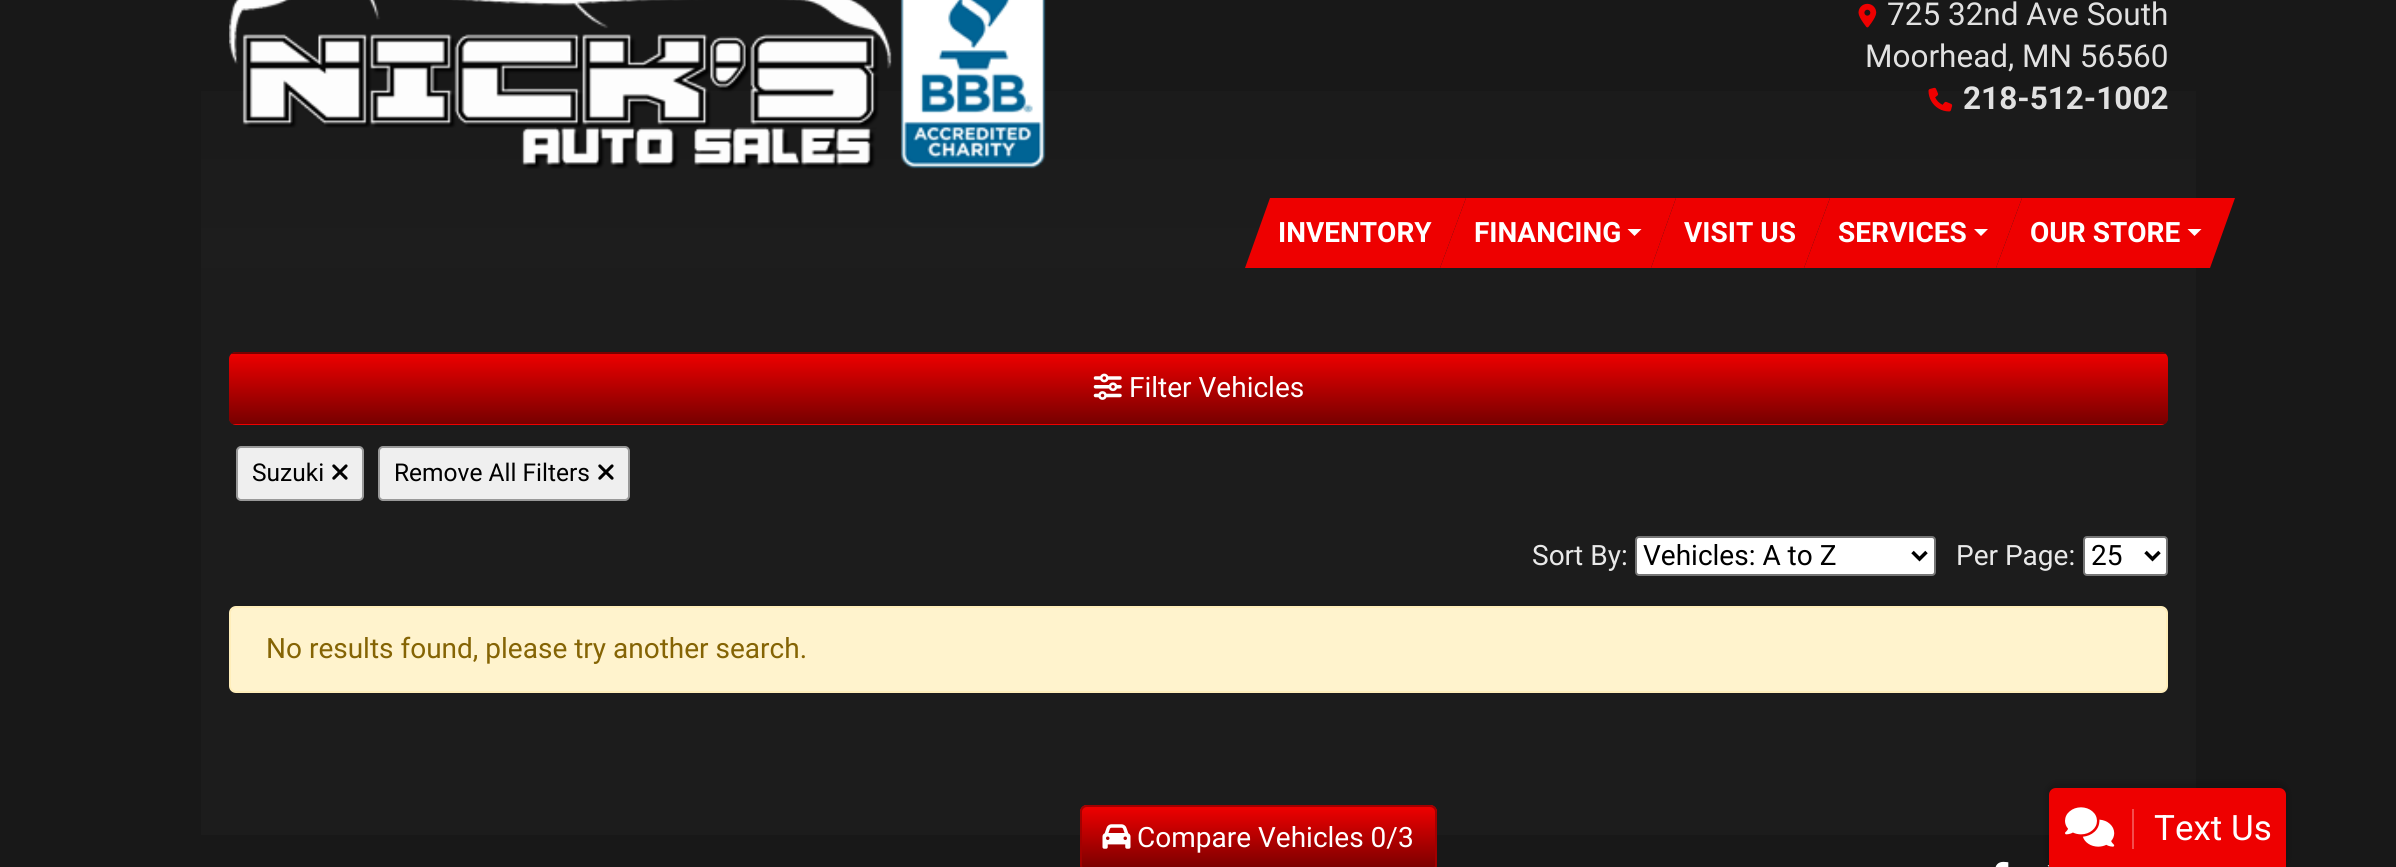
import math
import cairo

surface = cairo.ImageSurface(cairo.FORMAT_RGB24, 2396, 867)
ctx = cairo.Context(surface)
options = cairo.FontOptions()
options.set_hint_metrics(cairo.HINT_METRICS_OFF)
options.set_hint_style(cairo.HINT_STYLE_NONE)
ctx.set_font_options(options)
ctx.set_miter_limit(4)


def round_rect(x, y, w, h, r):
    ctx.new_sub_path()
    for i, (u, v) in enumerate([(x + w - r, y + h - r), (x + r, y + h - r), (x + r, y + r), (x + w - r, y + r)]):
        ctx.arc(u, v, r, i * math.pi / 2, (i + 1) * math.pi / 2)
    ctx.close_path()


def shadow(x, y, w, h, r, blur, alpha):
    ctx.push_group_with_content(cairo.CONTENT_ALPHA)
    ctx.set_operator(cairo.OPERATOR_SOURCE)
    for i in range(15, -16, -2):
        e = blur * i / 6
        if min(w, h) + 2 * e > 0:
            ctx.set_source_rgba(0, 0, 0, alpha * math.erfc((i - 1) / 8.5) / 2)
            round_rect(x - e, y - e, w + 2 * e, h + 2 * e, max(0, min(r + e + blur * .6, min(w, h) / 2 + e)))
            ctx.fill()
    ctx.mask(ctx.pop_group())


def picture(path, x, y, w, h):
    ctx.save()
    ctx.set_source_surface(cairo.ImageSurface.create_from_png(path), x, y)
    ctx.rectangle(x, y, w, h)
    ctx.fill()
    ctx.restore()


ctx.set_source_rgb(0.094, 0.094, 0.094)
ctx.paint()
ctx.set_source_rgb(0.11, 0.11, 0.11)
ctx.rectangle(201, 268, 1995, 567)
ctx.fill()
gradient = cairo.LinearGradient(1199, -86, 1199, 268)
gradient.add_color_stop_rgba(0, 0.094, 0.094, 0.094, 1)
gradient.add_color_stop_rgba(1, 0.114, 0.114, 0.114, 1)
ctx.set_source(gradient)
ctx.rectangle(201, 91, 1995, 177)
ctx.fill()
picture("img1.png", 229, 0, 817, 169)
picture("img2.png", 1858, 3, 19, 25)
ctx.select_font_face("Roboto")
ctx.set_font_size(31.5)
ctx.set_source_rgb(0.882, 0.882, 0.882)
ctx.move_to(1887, 25)
ctx.show_text("725 32nd Ave South")
ctx.move_to(1865, 67)
ctx.show_text("Moorhead, MN 56560")
picture("img3.png", 1928, 87, 25, 25)
ctx.select_font_face("Roboto", cairo.FONT_SLANT_NORMAL, cairo.FONT_WEIGHT_BOLD)
ctx.move_to(1963, 109)
ctx.show_text("218-512-1002")
ctx.set_source_rgb(0.933, 0, 0)
ctx.new_path()
ctx.move_to(1270, 198)
ctx.line_to(1466, 198)
ctx.line_to(1440, 268)
ctx.line_to(1245, 268)
ctx.close_path()
ctx.fill()
ctx.set_font_size(28)
ctx.set_source_rgb(1, 1, 1)
ctx.move_to(1278, 242)
ctx.show_text("INVENTORY")
ctx.set_source_rgb(0.933, 0, 0)
ctx.new_path()
ctx.move_to(1466, 198)
ctx.line_to(1676, 198)
ctx.line_to(1651, 268)
ctx.line_to(1440, 268)
ctx.close_path()
ctx.fill()
ctx.set_source_rgb(1, 1, 1)
ctx.move_to(1474, 242)
ctx.show_text("FINANCING")
ctx.new_path()
ctx.move_to(1627.5, 229)
ctx.line_to(1641.5, 229)
ctx.line_to(1634.5, 236)
ctx.close_path()
ctx.fill()
ctx.set_source_rgb(0.933, 0, 0)
ctx.new_path()
ctx.move_to(1676, 198)
ctx.line_to(1830, 198)
ctx.line_to(1804, 268)
ctx.line_to(1651, 268)
ctx.close_path()
ctx.fill()
ctx.set_source_rgb(1, 1, 1)
ctx.move_to(1684, 242)
ctx.show_text("VISIT US")
ctx.set_source_rgb(0.933, 0, 0)
ctx.new_path()
ctx.move_to(1830, 198)
ctx.line_to(2022, 198)
ctx.line_to(1996, 268)
ctx.line_to(1804, 268)
ctx.close_path()
ctx.fill()
ctx.set_source_rgb(1, 1, 1)
ctx.move_to(1838, 242)
ctx.show_text("SERVICES")
ctx.new_path()
ctx.move_to(1974, 229)
ctx.line_to(1988, 229)
ctx.line_to(1981, 236)
ctx.close_path()
ctx.fill()
ctx.set_source_rgb(0.933, 0, 0)
ctx.new_path()
ctx.move_to(2022, 198)
ctx.line_to(2235, 198)
ctx.line_to(2210, 268)
ctx.line_to(1996, 268)
ctx.close_path()
ctx.fill()
ctx.set_source_rgb(1, 1, 1)
ctx.move_to(2030, 242)
ctx.show_text("OUR STORE")
ctx.new_path()
ctx.move_to(2187.5, 229)
ctx.line_to(2201.5, 229)
ctx.line_to(2194.5, 236)
ctx.close_path()
ctx.fill()
ctx.set_source_rgb(0.933, 0, 0)
round_rect(229, 352, 1939, 73, 7)
ctx.fill()
ctx.save()
round_rect(229, 352, 1939, 73, 7)
ctx.clip()
gradient = cairo.LinearGradient(1199, 283, 1199, 354)
gradient.add_color_stop_rgba(0, 0, 0, 0, 0)
gradient.add_color_stop_rgba(1, 0, 0, 0, 0.5)
ctx.set_source(gradient)
ctx.rectangle(229, 352, 1939, 2)
ctx.fill()
gradient = cairo.LinearGradient(1199, 353, 1199, 424)
gradient.add_color_stop_rgba(0, 0, 0, 0, 0)
gradient.add_color_stop_rgba(1, 0, 0, 0, 0.5)
ctx.set_source(gradient)
ctx.rectangle(229, 356, 1939, 68)
ctx.fill()
ctx.restore()
picture("img4.png", 1093, 373, 29, 27)
ctx.select_font_face("Roboto")
ctx.set_source_rgb(1, 1, 1)
ctx.move_to(1129, 397)
ctx.show_text("Filter Vehicles")
ctx.set_source_rgb(0.937, 0.937, 0.937)
round_rect(237, 447, 126, 53, 4)
ctx.fill_preserve()
ctx.set_source_rgb(0.6, 0.6, 0.6)
ctx.stroke()
ctx.set_font_size(24.5)
ctx.set_source_rgb(0, 0, 0)
ctx.move_to(252, 481)
ctx.show_text("Suzuki")
picture("img5.png", 332, 464, 16, 16)
ctx.set_source_rgb(0.937, 0.937, 0.937)
round_rect(379, 447, 250, 53, 4)
ctx.fill_preserve()
ctx.set_source_rgb(0.6, 0.6, 0.6)
ctx.stroke()
ctx.set_source_rgb(0, 0, 0)
ctx.move_to(394, 481)
ctx.show_text("Remove All Filters")
picture("img5.png", 598, 464, 16, 16)
ctx.set_font_size(28)
ctx.set_source_rgb(0.914, 0.914, 0.914)
ctx.move_to(1532, 565)
ctx.show_text("Sort By:")
ctx.set_source_rgb(1, 1, 1)
round_rect(1636, 537, 299, 38, 3)
ctx.fill_preserve()
ctx.set_source_rgb(0.463, 0.463, 0.463)
ctx.stroke()
ctx.new_path()
ctx.move_to(1912.5, 552)
ctx.line_to(1919.5, 559)
ctx.line_to(1926.5, 552)
ctx.set_source_rgb(0, 0, 0)
ctx.set_line_width(3.5)
ctx.stroke()
ctx.move_to(1643, 565)
ctx.show_text("Vehicles: A to Z")
ctx.set_source_rgb(0.914, 0.914, 0.914)
ctx.move_to(1956, 565)
ctx.show_text("Per Page:")
ctx.set_source_rgb(1, 1, 1)
round_rect(2084, 537, 83, 38, 3)
ctx.fill_preserve()
ctx.set_source_rgb(0.463, 0.463, 0.463)
ctx.set_line_width(2)
ctx.stroke()
ctx.new_path()
ctx.move_to(2145.5, 552)
ctx.line_to(2152.5, 559)
ctx.line_to(2159.5, 552)
ctx.set_source_rgb(0, 0, 0)
ctx.set_line_width(3.5)
ctx.stroke()
ctx.move_to(2091, 565)
ctx.show_text("25")
ctx.set_source_rgb(1, 0.953, 0.804)
round_rect(230, 607, 1937, 85, 6)
ctx.fill_preserve()
ctx.set_source_rgb(1, 0.933, 0.729)
ctx.set_line_width(2)
ctx.stroke()
ctx.set_source_rgb(0.522, 0.392, 0.016)
ctx.move_to(266, 658)
ctx.show_text("No results found, please try another search.")
ctx.set_source_rgb(0.933, 0, 0)
round_rect(1080, 805, 357, 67, 7)
ctx.fill()
gradient = cairo.LinearGradient(1258, 807, 1258, 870)
gradient.add_color_stop_rgba(0, 0, 0, 0, 0)
gradient.add_color_stop_rgba(1, 0, 0, 0, 0.5)
ctx.set_source(gradient)
ctx.rectangle(1080, 810, 357, 57)
ctx.fill()
round_rect(1081, 806, 355, 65, 6)
ctx.set_source_rgb(0.635, 0, 0)
ctx.stroke()
picture("img6.png", 1102, 824, 29, 25)
ctx.set_source_rgb(1, 1, 1)
ctx.move_to(1137, 847)
ctx.show_text("Compare Vehicles 0/3")
picture("img9.png", 2047, 865, 2, 2)
ctx.set_source_rgb(0, 0, 0)
shadow(2046, 782, 243, 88, 11, 2.5, 0.15)
ctx.set_source_rgb(0.933, 0, 0)
ctx.new_path()
ctx.move_to(2056, 788)
ctx.line_to(2279, 788)
ctx.curve_to(2283, 788, 2286, 791, 2286, 795)
ctx.line_to(2286, 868)
ctx.line_to(2049, 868)
ctx.line_to(2049, 795)
ctx.curve_to(2049, 791, 2052, 788, 2056, 788)
ctx.close_path()
ctx.fill()
ctx.set_source_rgb(0.953, 0.302, 0.302)
ctx.rectangle(2132, 809, 2, 40)
ctx.fill()
picture("img7.png", 2065, 807, 50, 40)
ctx.set_font_size(35)
ctx.set_source_rgb(1, 1, 1)
ctx.move_to(2154, 840)
ctx.show_text("Text Us")
picture("img8.png", 1995, 861, 14, 6)
surface.write_to_png("page.png")
